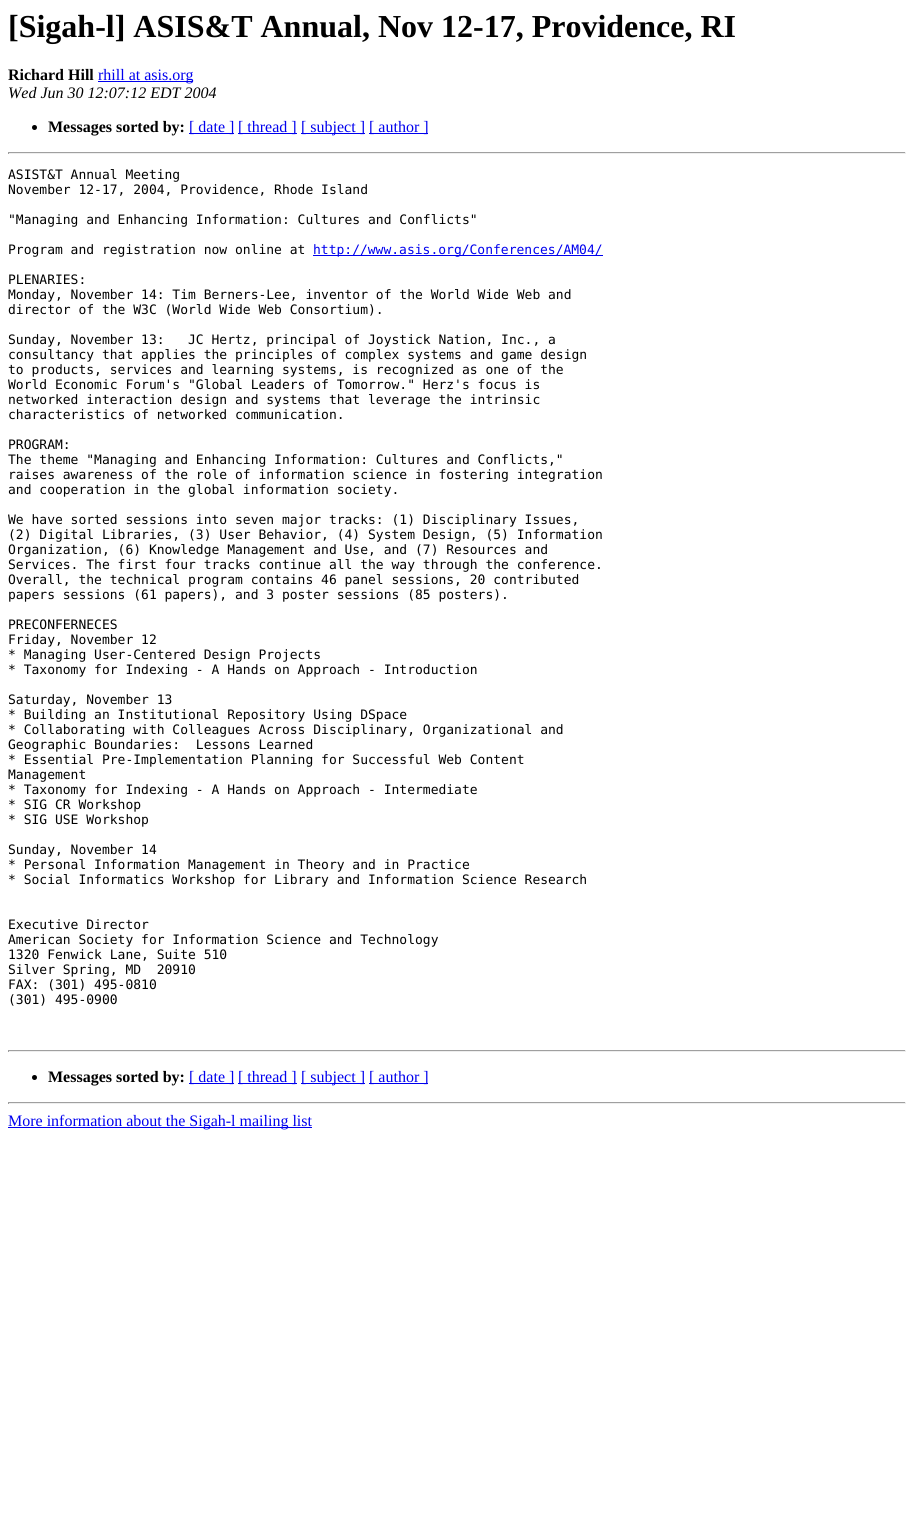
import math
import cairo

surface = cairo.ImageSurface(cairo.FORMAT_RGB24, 914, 1529)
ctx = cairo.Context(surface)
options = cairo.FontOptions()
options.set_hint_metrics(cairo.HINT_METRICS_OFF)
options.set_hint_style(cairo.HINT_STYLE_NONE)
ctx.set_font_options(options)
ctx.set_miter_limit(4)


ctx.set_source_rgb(1, 1, 1)
ctx.paint()
ctx.select_font_face("Liberation Serif", cairo.FONT_SLANT_NORMAL, cairo.FONT_WEIGHT_BOLD)
ctx.set_font_size(32)
ctx.set_source_rgb(0, 0, 0)
ctx.move_to(8, 37)
ctx.show_text("[Sigah-l] ASIS&T Annual, Nov 12-17, Providence, RI")
ctx.set_font_size(16)
ctx.move_to(8, 80)
ctx.show_text("Richard Hill")
ctx.set_source_rgb(0, 0, 0.933)
ctx.rectangle(98, 81, 95, 1)
ctx.fill()
ctx.select_font_face("Liberation Serif")
ctx.move_to(98, 80)
ctx.show_text("rhill at asis.org")
ctx.select_font_face("Liberation Serif", cairo.FONT_SLANT_ITALIC)
ctx.set_source_rgb(0, 0, 0)
ctx.move_to(8, 98)
ctx.show_text("Wed Jun 30 12:07:12 EDT 2004")
ctx.new_path()
ctx.arc(34.5, 127.5, 2.5, 0, 2 * math.pi)
ctx.fill()
ctx.select_font_face("Liberation Serif", cairo.FONT_SLANT_NORMAL, cairo.FONT_WEIGHT_BOLD)
ctx.move_to(48, 132)
ctx.show_text("Messages sorted by:")
ctx.set_source_rgb(0, 0, 0.933)
ctx.rectangle(189, 133, 45, 1)
ctx.fill()
ctx.select_font_face("Liberation Serif")
ctx.move_to(189, 132)
ctx.show_text("[ date ]")
ctx.rectangle(238, 133, 59, 1)
ctx.fill()
ctx.move_to(238, 132)
ctx.show_text("[ thread ]")
ctx.rectangle(301, 133, 64, 1)
ctx.fill()
ctx.move_to(301, 132)
ctx.show_text("[ subject ]")
ctx.rectangle(369, 133, 59, 1)
ctx.fill()
ctx.move_to(369, 132)
ctx.show_text("[ author ]")
ctx.set_source_rgb(0.624, 0.624, 0.624)
ctx.rectangle(8, 152, 898, 1)
ctx.fill()
ctx.set_source_rgb(0.933, 0.933, 0.933)
ctx.rectangle(905, 152, 1, 2)
ctx.fill()
ctx.rectangle(8, 153, 898, 1)
ctx.fill()
ctx.set_source_rgb(0.624, 0.624, 0.624)
ctx.rectangle(8, 152, 1, 2)
ctx.fill()
ctx.select_font_face("DejaVu Sans Mono")
ctx.set_font_size(13)
ctx.set_source_rgb(0, 0, 0)
ctx.move_to(8, 179)
ctx.show_text("ASIST&T Annual Meeting")
ctx.move_to(8, 194)
ctx.show_text("November 12-17, 2004, Providence, Rhode Island")
ctx.move_to(8, 224)
ctx.show_text("\"Managing and Enhancing Information: Cultures and Conflicts\"")
ctx.move_to(8, 254)
ctx.show_text("Program and registration now online at")
ctx.set_source_rgb(0, 0, 0.933)
ctx.rectangle(313, 255, 290, 1)
ctx.fill()
ctx.move_to(313, 254)
ctx.show_text("http://www.asis.org/Conferences/AM04/")
ctx.set_source_rgb(0, 0, 0)
ctx.move_to(8, 284)
ctx.show_text("PLENARIES:")
ctx.move_to(8, 299)
ctx.show_text("Monday, November 14: Tim Berners-Lee, inventor of the World Wide Web and")
ctx.move_to(8, 314)
ctx.show_text("director of the W3C (World Wide Web Consortium).")
ctx.move_to(8, 344)
ctx.show_text("Sunday, November 13:   JC Hertz, principal of Joystick Nation, Inc., a")
ctx.move_to(8, 359)
ctx.show_text("consultancy that applies the principles of complex systems and game design")
ctx.move_to(8, 374)
ctx.show_text("to products, services and learning systems, is recognized as one of the")
ctx.move_to(8, 389)
ctx.show_text("World Economic Forum's \"Global Leaders of Tomorrow.\" Herz's focus is")
ctx.move_to(8, 404)
ctx.show_text("networked interaction design and systems that leverage the intrinsic")
ctx.move_to(8, 419)
ctx.show_text("characteristics of networked communication.")
ctx.move_to(8, 449)
ctx.show_text("PROGRAM:")
ctx.move_to(8, 464)
ctx.show_text("The theme \"Managing and Enhancing Information: Cultures and Conflicts,\"")
ctx.move_to(8, 479)
ctx.show_text("raises awareness of the role of information science in fostering integration")
ctx.move_to(8, 494)
ctx.show_text("and cooperation in the global information society.")
ctx.move_to(8, 524)
ctx.show_text("We have sorted sessions into seven major tracks: (1) Disciplinary Issues,")
ctx.move_to(8, 539)
ctx.show_text("(2) Digital Libraries, (3) User Behavior, (4) System Design, (5) Information")
ctx.move_to(8, 554)
ctx.show_text("Organization, (6) Knowledge Management and Use, and (7) Resources and")
ctx.move_to(8, 569)
ctx.show_text("Services. The first four tracks continue all the way through the conference.")
ctx.move_to(8, 584)
ctx.show_text("Overall, the technical program contains 46 panel sessions, 20 contributed")
ctx.move_to(8, 599)
ctx.show_text("papers sessions (61 papers), and 3 poster sessions (85 posters).")
ctx.move_to(8, 629)
ctx.show_text("PRECONFERNECES")
ctx.move_to(8, 644)
ctx.show_text("Friday, November 12")
ctx.move_to(8, 659)
ctx.show_text("* Managing User-Centered Design Projects")
ctx.move_to(8, 674)
ctx.show_text("* Taxonomy for Indexing - A Hands on Approach - Introduction")
ctx.move_to(8, 704)
ctx.show_text("Saturday, November 13")
ctx.move_to(8, 719)
ctx.show_text("* Building an Institutional Repository Using DSpace")
ctx.move_to(8, 734)
ctx.show_text("* Collaborating with Colleagues Across Disciplinary, Organizational and")
ctx.move_to(8, 749)
ctx.show_text("Geographic Boundaries:  Lessons Learned")
ctx.move_to(8, 764)
ctx.show_text("* Essential Pre-Implementation Planning for Successful Web Content")
ctx.move_to(8, 779)
ctx.show_text("Management")
ctx.move_to(8, 794)
ctx.show_text("* Taxonomy for Indexing - A Hands on Approach - Intermediate")
ctx.move_to(8, 809)
ctx.show_text("* SIG CR Workshop")
ctx.move_to(8, 824)
ctx.show_text("* SIG USE Workshop")
ctx.move_to(8, 854)
ctx.show_text("Sunday, November 14")
ctx.move_to(8, 869)
ctx.show_text("* Personal Information Management in Theory and in Practice")
ctx.move_to(8, 884)
ctx.show_text("* Social Informatics Workshop for Library and Information Science Research")
ctx.move_to(8, 929)
ctx.show_text("Executive Director")
ctx.move_to(8, 944)
ctx.show_text("American Society for Information Science and Technology")
ctx.move_to(8, 959)
ctx.show_text("1320 Fenwick Lane, Suite 510")
ctx.move_to(8, 974)
ctx.show_text("Silver Spring, MD  20910")
ctx.move_to(8, 989)
ctx.show_text("FAX: (301) 495-0810")
ctx.move_to(8, 1004)
ctx.show_text("(301) 495-0900")
ctx.set_source_rgb(0.624, 0.624, 0.624)
ctx.rectangle(8, 1050, 898, 1)
ctx.fill()
ctx.set_source_rgb(0.933, 0.933, 0.933)
ctx.rectangle(905, 1050, 1, 2)
ctx.fill()
ctx.rectangle(8, 1051, 898, 1)
ctx.fill()
ctx.set_source_rgb(0.624, 0.624, 0.624)
ctx.rectangle(8, 1050, 1, 2)
ctx.fill()
ctx.set_source_rgb(0, 0, 0)
ctx.arc(34.5, 1077.5, 2.5, 0, 2 * math.pi)
ctx.fill()
ctx.select_font_face("Liberation Serif", cairo.FONT_SLANT_NORMAL, cairo.FONT_WEIGHT_BOLD)
ctx.set_font_size(16)
ctx.move_to(48, 1082)
ctx.show_text("Messages sorted by:")
ctx.set_source_rgb(0, 0, 0.933)
ctx.rectangle(189, 1083, 45, 1)
ctx.fill()
ctx.select_font_face("Liberation Serif")
ctx.move_to(189, 1082)
ctx.show_text("[ date ]")
ctx.rectangle(238, 1083, 59, 1)
ctx.fill()
ctx.move_to(238, 1082)
ctx.show_text("[ thread ]")
ctx.rectangle(301, 1083, 64, 1)
ctx.fill()
ctx.move_to(301, 1082)
ctx.show_text("[ subject ]")
ctx.rectangle(369, 1083, 59, 1)
ctx.fill()
ctx.move_to(369, 1082)
ctx.show_text("[ author ]")
ctx.set_source_rgb(0.624, 0.624, 0.624)
ctx.rectangle(8, 1102, 898, 1)
ctx.fill()
ctx.set_source_rgb(0.933, 0.933, 0.933)
ctx.rectangle(905, 1102, 1, 2)
ctx.fill()
ctx.rectangle(8, 1103, 898, 1)
ctx.fill()
ctx.set_source_rgb(0.624, 0.624, 0.624)
ctx.rectangle(8, 1102, 1, 2)
ctx.fill()
ctx.set_source_rgb(0, 0, 0.933)
ctx.rectangle(8, 1127, 304, 1)
ctx.fill()
ctx.move_to(8, 1126)
ctx.show_text("More information about the Sigah-l mailing list")
surface.write_to_png("page.png")
